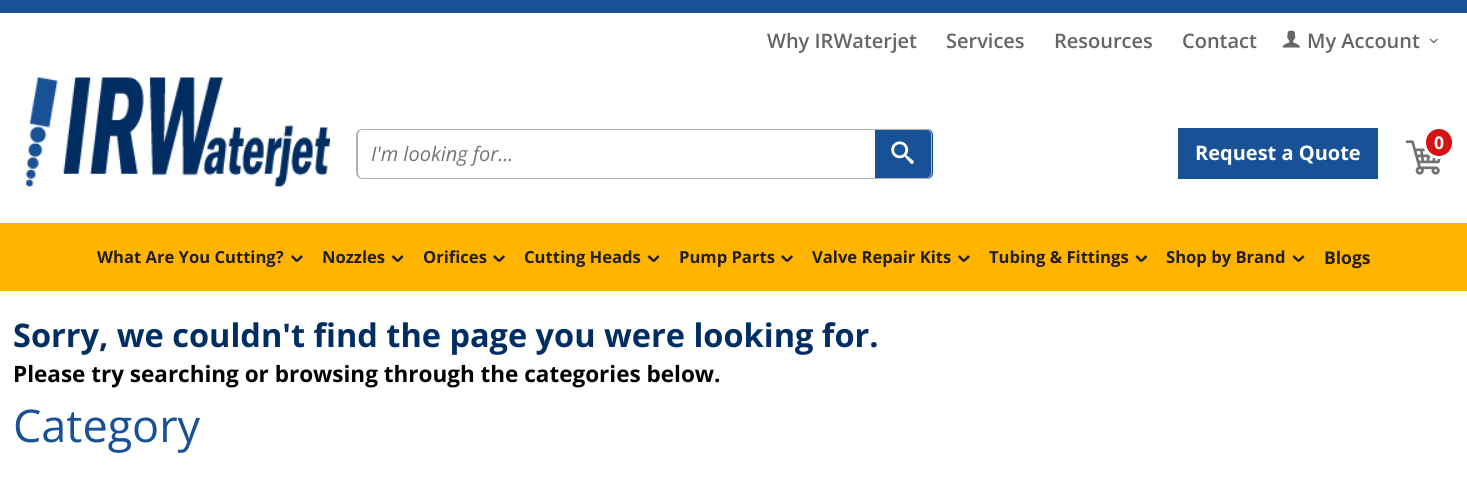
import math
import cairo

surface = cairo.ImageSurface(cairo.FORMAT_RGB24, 1467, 491)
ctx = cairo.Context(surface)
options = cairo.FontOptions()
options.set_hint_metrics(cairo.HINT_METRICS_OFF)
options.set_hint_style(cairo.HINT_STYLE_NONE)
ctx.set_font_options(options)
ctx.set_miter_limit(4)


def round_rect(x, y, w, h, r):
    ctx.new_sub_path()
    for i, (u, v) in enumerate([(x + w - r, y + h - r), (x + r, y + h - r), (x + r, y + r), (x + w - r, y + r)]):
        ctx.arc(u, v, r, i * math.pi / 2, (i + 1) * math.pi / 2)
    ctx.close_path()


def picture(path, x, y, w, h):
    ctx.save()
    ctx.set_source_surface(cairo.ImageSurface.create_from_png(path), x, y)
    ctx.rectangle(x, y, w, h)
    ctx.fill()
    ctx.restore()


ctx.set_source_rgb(1, 1, 1)
ctx.paint()
ctx.set_source_rgb(0.094, 0.318, 0.584)
ctx.rectangle(0, 0, 1467, 13)
ctx.fill()
ctx.select_font_face("Open Sans SemiBold")
ctx.set_font_size(20)
ctx.set_source_rgb(0.396, 0.396, 0.396)
ctx.move_to(767, 48)
ctx.show_text("Why IRWaterjet")
ctx.move_to(946, 48)
ctx.show_text("Services")
ctx.move_to(1054, 48)
ctx.show_text("Resources")
ctx.move_to(1182, 48)
ctx.show_text("Contact")
picture("img1.png", 1282, 30, 18, 18)
ctx.move_to(1307, 48)
ctx.show_text("My Account")
picture("img2.png", 1429, 38, 9, 6)
picture("img3.png", 26, 77, 304, 110)
picture("img4.png", 1405, 140, 36, 35)
ctx.set_source_rgb(0.839, 0.078, 0.078)
round_rect(1424.5, 127.5, 29, 30, 14.5)
ctx.fill_preserve()
ctx.set_source_rgb(1, 1, 1)
ctx.set_line_width(3)
ctx.stroke()
ctx.select_font_face("Open Sans", cairo.FONT_SLANT_NORMAL, cairo.FONT_WEIGHT_BOLD)
ctx.set_font_size(17.5)
ctx.move_to(1434, 149)
ctx.show_text("0")
ctx.set_source_rgb(0.094, 0.318, 0.584)
ctx.new_path()
ctx.move_to(874, 129)
ctx.line_to(927, 129)
ctx.curve_to(930.5, 129, 933, 131.5, 933, 135)
ctx.line_to(933, 173)
ctx.curve_to(933, 176.5, 930.5, 179, 927, 179)
ctx.line_to(874, 179)
ctx.close_path()
ctx.fill()
ctx.set_source_rgb(0.678, 0.694, 0.714)
ctx.set_fill_rule(cairo.FILL_RULE_EVEN_ODD)
ctx.new_path()
ctx.move_to(874, 129)
ctx.line_to(926, 129)
ctx.curve_to(930, 129, 932, 132, 932, 135)
ctx.line_to(932, 172)
ctx.curve_to(932, 176, 930, 179, 926, 179)
ctx.line_to(874, 179)
ctx.close_path()
ctx.move_to(874, 130)
ctx.line_to(926, 130)
ctx.curve_to(929, 130, 931, 132, 931, 135)
ctx.line_to(931, 172)
ctx.curve_to(931, 175, 929, 178, 926, 178)
ctx.line_to(874, 178)
ctx.close_path()
ctx.fill()
ctx.set_source_rgb(1, 1, 1)
ctx.new_path()
ctx.move_to(362, 129)
ctx.line_to(875, 129)
ctx.line_to(875, 179)
ctx.line_to(362, 179)
ctx.curve_to(358.5, 179, 356, 176.5, 356, 173)
ctx.line_to(356, 135)
ctx.curve_to(356, 131.5, 358.5, 129, 362, 129)
ctx.close_path()
ctx.fill()
ctx.set_source_rgb(0.678, 0.694, 0.714)
ctx.new_path()
ctx.move_to(362, 129)
ctx.line_to(875, 129)
ctx.line_to(875, 179)
ctx.line_to(362, 179)
ctx.curve_to(359, 179, 356, 176, 356, 172)
ctx.line_to(356, 135)
ctx.curve_to(356, 132, 359, 129, 362, 129)
ctx.close_path()
ctx.move_to(362, 130)
ctx.line_to(875, 130)
ctx.line_to(875, 178)
ctx.line_to(362, 178)
ctx.curve_to(360, 178, 358, 175, 358, 172)
ctx.line_to(358, 135)
ctx.curve_to(358, 132, 360, 130, 362, 130)
ctx.close_path()
ctx.fill()
ctx.select_font_face("Open Sans", cairo.FONT_SLANT_ITALIC)
ctx.set_font_size(20)
ctx.set_source_rgb(0.459, 0.459, 0.459)
ctx.move_to(371, 161)
ctx.show_text("I'm looking for...")
picture("img5.png", 891, 141, 23, 23)
ctx.set_source_rgb(0.094, 0.318, 0.584)
ctx.rectangle(1178, 128, 200, 51)
ctx.fill()
ctx.select_font_face("Open Sans", cairo.FONT_SLANT_NORMAL, cairo.FONT_WEIGHT_BOLD)
ctx.set_source_rgb(1, 1, 1)
ctx.move_to(1195, 160)
ctx.show_text("Request a Quote")
ctx.set_source_rgb(1, 0.706, 0)
ctx.rectangle(0, 223, 1467, 68)
ctx.fill()
ctx.set_font_size(16.6)
ctx.set_source_rgb(0.137, 0.122, 0.125)
ctx.move_to(97, 263)
ctx.show_text("What Are You Cutting?")
ctx.set_fill_rule(cairo.FILL_RULE_WINDING)
ctx.new_path()
ctx.move_to(292.5, 255)
ctx.line_to(298, 260.5)
ctx.line_to(296, 262)
ctx.line_to(291, 257)
ctx.close_path()
ctx.fill()
ctx.new_path()
ctx.move_to(296, 260.5)
ctx.line_to(301, 255)
ctx.line_to(303, 257)
ctx.line_to(297.5, 262)
ctx.close_path()
ctx.fill()
ctx.move_to(322, 263)
ctx.show_text("Nozzles")
ctx.new_path()
ctx.move_to(393.5, 255)
ctx.line_to(398.5, 260.5)
ctx.line_to(397, 262)
ctx.line_to(391.5, 257)
ctx.close_path()
ctx.fill()
ctx.new_path()
ctx.move_to(396.5, 260.5)
ctx.line_to(402, 255)
ctx.line_to(403.5, 257)
ctx.line_to(398.5, 262)
ctx.close_path()
ctx.fill()
ctx.move_to(423, 263)
ctx.show_text("Orifices")
ctx.new_path()
ctx.move_to(495, 255)
ctx.line_to(500, 260.5)
ctx.line_to(498.5, 262)
ctx.line_to(493, 257)
ctx.close_path()
ctx.fill()
ctx.new_path()
ctx.move_to(498, 260.5)
ctx.line_to(503.5, 255)
ctx.line_to(505, 257)
ctx.line_to(500, 262)
ctx.close_path()
ctx.fill()
ctx.move_to(524, 263)
ctx.show_text("Cutting Heads")
ctx.new_path()
ctx.move_to(649.5, 255)
ctx.line_to(654.5, 260.5)
ctx.line_to(653, 262)
ctx.line_to(647.5, 257)
ctx.close_path()
ctx.fill()
ctx.new_path()
ctx.move_to(652.5, 260.5)
ctx.line_to(658, 255)
ctx.line_to(659.5, 257)
ctx.line_to(654.5, 262)
ctx.close_path()
ctx.fill()
ctx.move_to(679, 263)
ctx.show_text("Pump Parts")
ctx.new_path()
ctx.move_to(783, 255)
ctx.line_to(788, 260.5)
ctx.line_to(786.5, 262)
ctx.line_to(781, 257)
ctx.close_path()
ctx.fill()
ctx.new_path()
ctx.move_to(786, 260.5)
ctx.line_to(791.5, 255)
ctx.line_to(793, 257)
ctx.line_to(788, 262)
ctx.close_path()
ctx.fill()
ctx.move_to(812, 263)
ctx.show_text("Valve Repair Kits")
ctx.new_path()
ctx.move_to(959.5, 255)
ctx.line_to(965, 260.5)
ctx.line_to(963, 262)
ctx.line_to(958, 257)
ctx.close_path()
ctx.fill()
ctx.new_path()
ctx.move_to(963, 260.5)
ctx.line_to(968, 255)
ctx.line_to(970, 257)
ctx.line_to(964.5, 262)
ctx.close_path()
ctx.fill()
ctx.move_to(989, 263)
ctx.show_text("Tubing & Fittings")
ctx.new_path()
ctx.move_to(1137, 255)
ctx.line_to(1142.5, 260.5)
ctx.line_to(1140.5, 262)
ctx.line_to(1135.5, 257)
ctx.close_path()
ctx.fill()
ctx.new_path()
ctx.move_to(1140.5, 260.5)
ctx.line_to(1145.5, 255)
ctx.line_to(1147.5, 257)
ctx.line_to(1142, 262)
ctx.close_path()
ctx.fill()
ctx.move_to(1166, 263)
ctx.show_text("Shop by Brand")
ctx.new_path()
ctx.move_to(1294, 255)
ctx.line_to(1299.5, 260.5)
ctx.line_to(1298, 262)
ctx.line_to(1292.5, 257)
ctx.close_path()
ctx.fill()
ctx.new_path()
ctx.move_to(1297.5, 260.5)
ctx.line_to(1303, 255)
ctx.line_to(1304.5, 257)
ctx.line_to(1299, 262)
ctx.close_path()
ctx.fill()
ctx.set_font_size(17.5)
ctx.move_to(1324, 264)
ctx.show_text("Blogs")
ctx.set_font_size(32.5)
ctx.set_source_rgb(0, 0.176, 0.384)
ctx.move_to(13, 347)
ctx.show_text("Sorry, we couldn't find the page you were looking for.")
ctx.set_font_size(22.5)
ctx.set_source_rgb(0, 0, 0)
ctx.move_to(13, 382)
ctx.show_text("Please try searching or browsing through the categories below.")
ctx.select_font_face("Open Sans")
ctx.set_font_size(45)
ctx.set_source_rgb(0.094, 0.318, 0.584)
ctx.move_to(13, 442)
ctx.show_text("Category")
surface.write_to_png("page.png")
